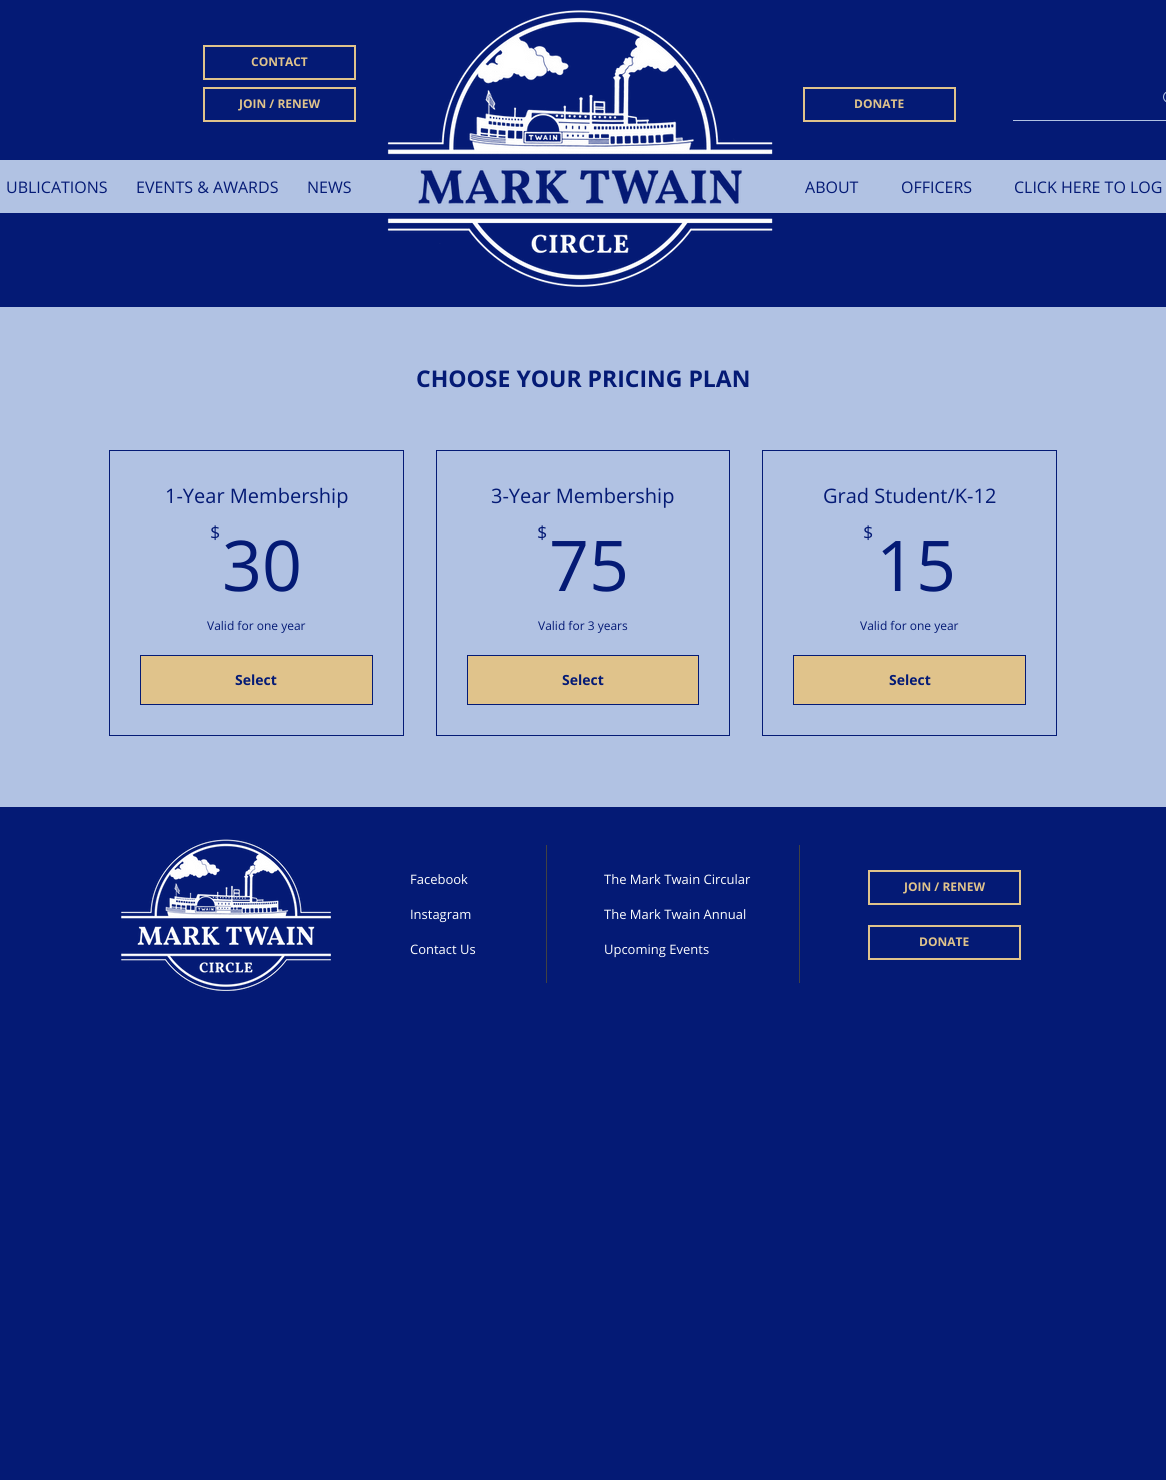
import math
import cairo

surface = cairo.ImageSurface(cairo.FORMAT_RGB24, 1166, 1480)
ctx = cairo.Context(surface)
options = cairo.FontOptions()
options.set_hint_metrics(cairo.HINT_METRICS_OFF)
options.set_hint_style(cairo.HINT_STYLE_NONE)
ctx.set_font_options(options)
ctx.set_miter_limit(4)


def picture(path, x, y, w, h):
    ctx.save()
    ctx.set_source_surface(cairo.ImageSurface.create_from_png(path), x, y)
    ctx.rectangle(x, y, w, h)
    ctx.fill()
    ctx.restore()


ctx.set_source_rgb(0.016, 0.102, 0.459)
ctx.paint()
ctx.rectangle(204, 46, 151, 33)
ctx.set_source_rgb(0.878, 0.765, 0.545)
ctx.stroke()
ctx.select_font_face("Open Sans", cairo.FONT_SLANT_NORMAL, cairo.FONT_WEIGHT_BOLD)
ctx.set_font_size(12)
ctx.move_to(251, 66)
ctx.show_text("CONTACT")
ctx.set_source_rgb(0.694, 0.761, 0.89)
ctx.rectangle(0, 160, 1166, 53)
ctx.fill()
picture("img1.png", 387, 10, 386, 277)
ctx.rectangle(204, 88, 151, 33)
ctx.set_source_rgb(0.878, 0.765, 0.545)
ctx.stroke()
ctx.move_to(239, 108)
ctx.show_text("JOIN / RENEW")
ctx.rectangle(804, 88, 151, 33)
ctx.stroke()
ctx.move_to(854, 108)
ctx.show_text("DONATE")
ctx.set_source_rgb(0.694, 0.761, 0.89)
ctx.rectangle(1013, 120, 153, 1)
ctx.fill()
picture("img2.png", 1163, 91, 3, 11)
ctx.select_font_face("Open Sans")
ctx.set_font_size(16)
ctx.set_source_rgb(0.016, 0.102, 0.459)
ctx.move_to(6, 193)
ctx.show_text("UBLICATIONS")
ctx.move_to(136, 193)
ctx.show_text("EVENTS & AWARDS")
ctx.move_to(307, 193)
ctx.show_text("NEWS")
ctx.move_to(805, 193)
ctx.show_text("ABOUT")
ctx.move_to(901, 193)
ctx.show_text("OFFICERS")
ctx.move_to(1014, 193)
ctx.show_text("CLICK HERE TO LOG")
ctx.set_source_rgb(0.694, 0.761, 0.89)
ctx.rectangle(0, 307, 1166, 500)
ctx.fill()
ctx.select_font_face("Open Sans", cairo.FONT_SLANT_NORMAL, cairo.FONT_WEIGHT_BOLD)
ctx.set_font_size(23)
ctx.set_source_rgb(0.016, 0.102, 0.459)
ctx.move_to(416, 387)
ctx.show_text("CHOOSE YOUR PRICING PLAN")
ctx.rectangle(109.5, 450.5, 294, 285)
ctx.set_line_width(1)
ctx.stroke()
ctx.select_font_face("Open Sans")
ctx.set_font_size(20)
ctx.move_to(165, 503)
ctx.show_text("1-Year Membership")
ctx.set_font_size(18)
ctx.move_to(210, 539)
ctx.show_text("$")
ctx.set_font_size(70)
ctx.move_to(222, 591)
ctx.show_text("30")
ctx.set_font_size(12)
ctx.move_to(207, 630)
ctx.show_text("Valid for one year")
ctx.set_source_rgb(0.878, 0.765, 0.545)
ctx.rectangle(140.5, 655.5, 232, 49)
ctx.fill_preserve()
ctx.set_source_rgb(0.016, 0.102, 0.459)
ctx.stroke()
ctx.select_font_face("Open Sans", cairo.FONT_SLANT_NORMAL, cairo.FONT_WEIGHT_BOLD)
ctx.set_font_size(14)
ctx.move_to(235, 685)
ctx.show_text("Select")
ctx.rectangle(436.5, 450.5, 293, 285)
ctx.stroke()
ctx.select_font_face("Open Sans")
ctx.set_font_size(20)
ctx.move_to(491, 503)
ctx.show_text("3-Year Membership")
ctx.set_font_size(18)
ctx.move_to(537, 539)
ctx.show_text("$")
ctx.set_font_size(70)
ctx.move_to(549, 591)
ctx.show_text("75")
ctx.set_font_size(12)
ctx.move_to(538, 630)
ctx.show_text("Valid for 3 years")
ctx.set_source_rgb(0.878, 0.765, 0.545)
ctx.rectangle(467.5, 655.5, 231, 49)
ctx.fill_preserve()
ctx.set_source_rgb(0.016, 0.102, 0.459)
ctx.stroke()
ctx.select_font_face("Open Sans", cairo.FONT_SLANT_NORMAL, cairo.FONT_WEIGHT_BOLD)
ctx.set_font_size(14)
ctx.move_to(562, 685)
ctx.show_text("Select")
ctx.rectangle(762.5, 450.5, 294, 285)
ctx.stroke()
ctx.select_font_face("Open Sans")
ctx.set_font_size(20)
ctx.move_to(823, 503)
ctx.show_text("Grad Student/K-12")
ctx.set_font_size(18)
ctx.move_to(863, 539)
ctx.show_text("$")
ctx.set_font_size(70)
ctx.move_to(876, 591)
ctx.show_text("15")
ctx.set_font_size(12)
ctx.move_to(860, 630)
ctx.show_text("Valid for one year")
ctx.set_source_rgb(0.878, 0.765, 0.545)
ctx.rectangle(793.5, 655.5, 232, 49)
ctx.fill_preserve()
ctx.set_source_rgb(0.016, 0.102, 0.459)
ctx.stroke()
ctx.select_font_face("Open Sans", cairo.FONT_SLANT_NORMAL, cairo.FONT_WEIGHT_BOLD)
ctx.set_font_size(14)
ctx.move_to(889, 685)
ctx.show_text("Select")
picture("img3.png", 121, 839, 210, 152)
ctx.select_font_face("Open Sans")
ctx.set_font_size(13)
ctx.set_source_rgb(1, 1, 1)
ctx.move_to(410, 884)
ctx.show_text("Facebook")
ctx.move_to(410, 919)
ctx.show_text("Instagram")
ctx.move_to(410, 954)
ctx.show_text("Contact Us")
ctx.set_source_rgb(0.259, 0.259, 0.259)
ctx.rectangle(546, 845, 1, 138)
ctx.fill()
ctx.set_source_rgb(1, 1, 1)
ctx.move_to(604, 884)
ctx.show_text("The Mark Twain Circular")
ctx.move_to(604, 919)
ctx.show_text("The Mark Twain Annual")
ctx.move_to(604, 954)
ctx.show_text("Upcoming Events")
ctx.set_source_rgb(0.259, 0.259, 0.259)
ctx.rectangle(799, 845, 1, 138)
ctx.fill()
ctx.rectangle(869, 871, 151, 33)
ctx.set_source_rgb(0.878, 0.765, 0.545)
ctx.set_line_width(2)
ctx.stroke()
ctx.select_font_face("Open Sans", cairo.FONT_SLANT_NORMAL, cairo.FONT_WEIGHT_BOLD)
ctx.set_font_size(12)
ctx.move_to(904, 891)
ctx.show_text("JOIN / RENEW")
ctx.rectangle(869, 926, 151, 33)
ctx.stroke()
ctx.move_to(919, 946)
ctx.show_text("DONATE")
surface.write_to_png("page.png")
